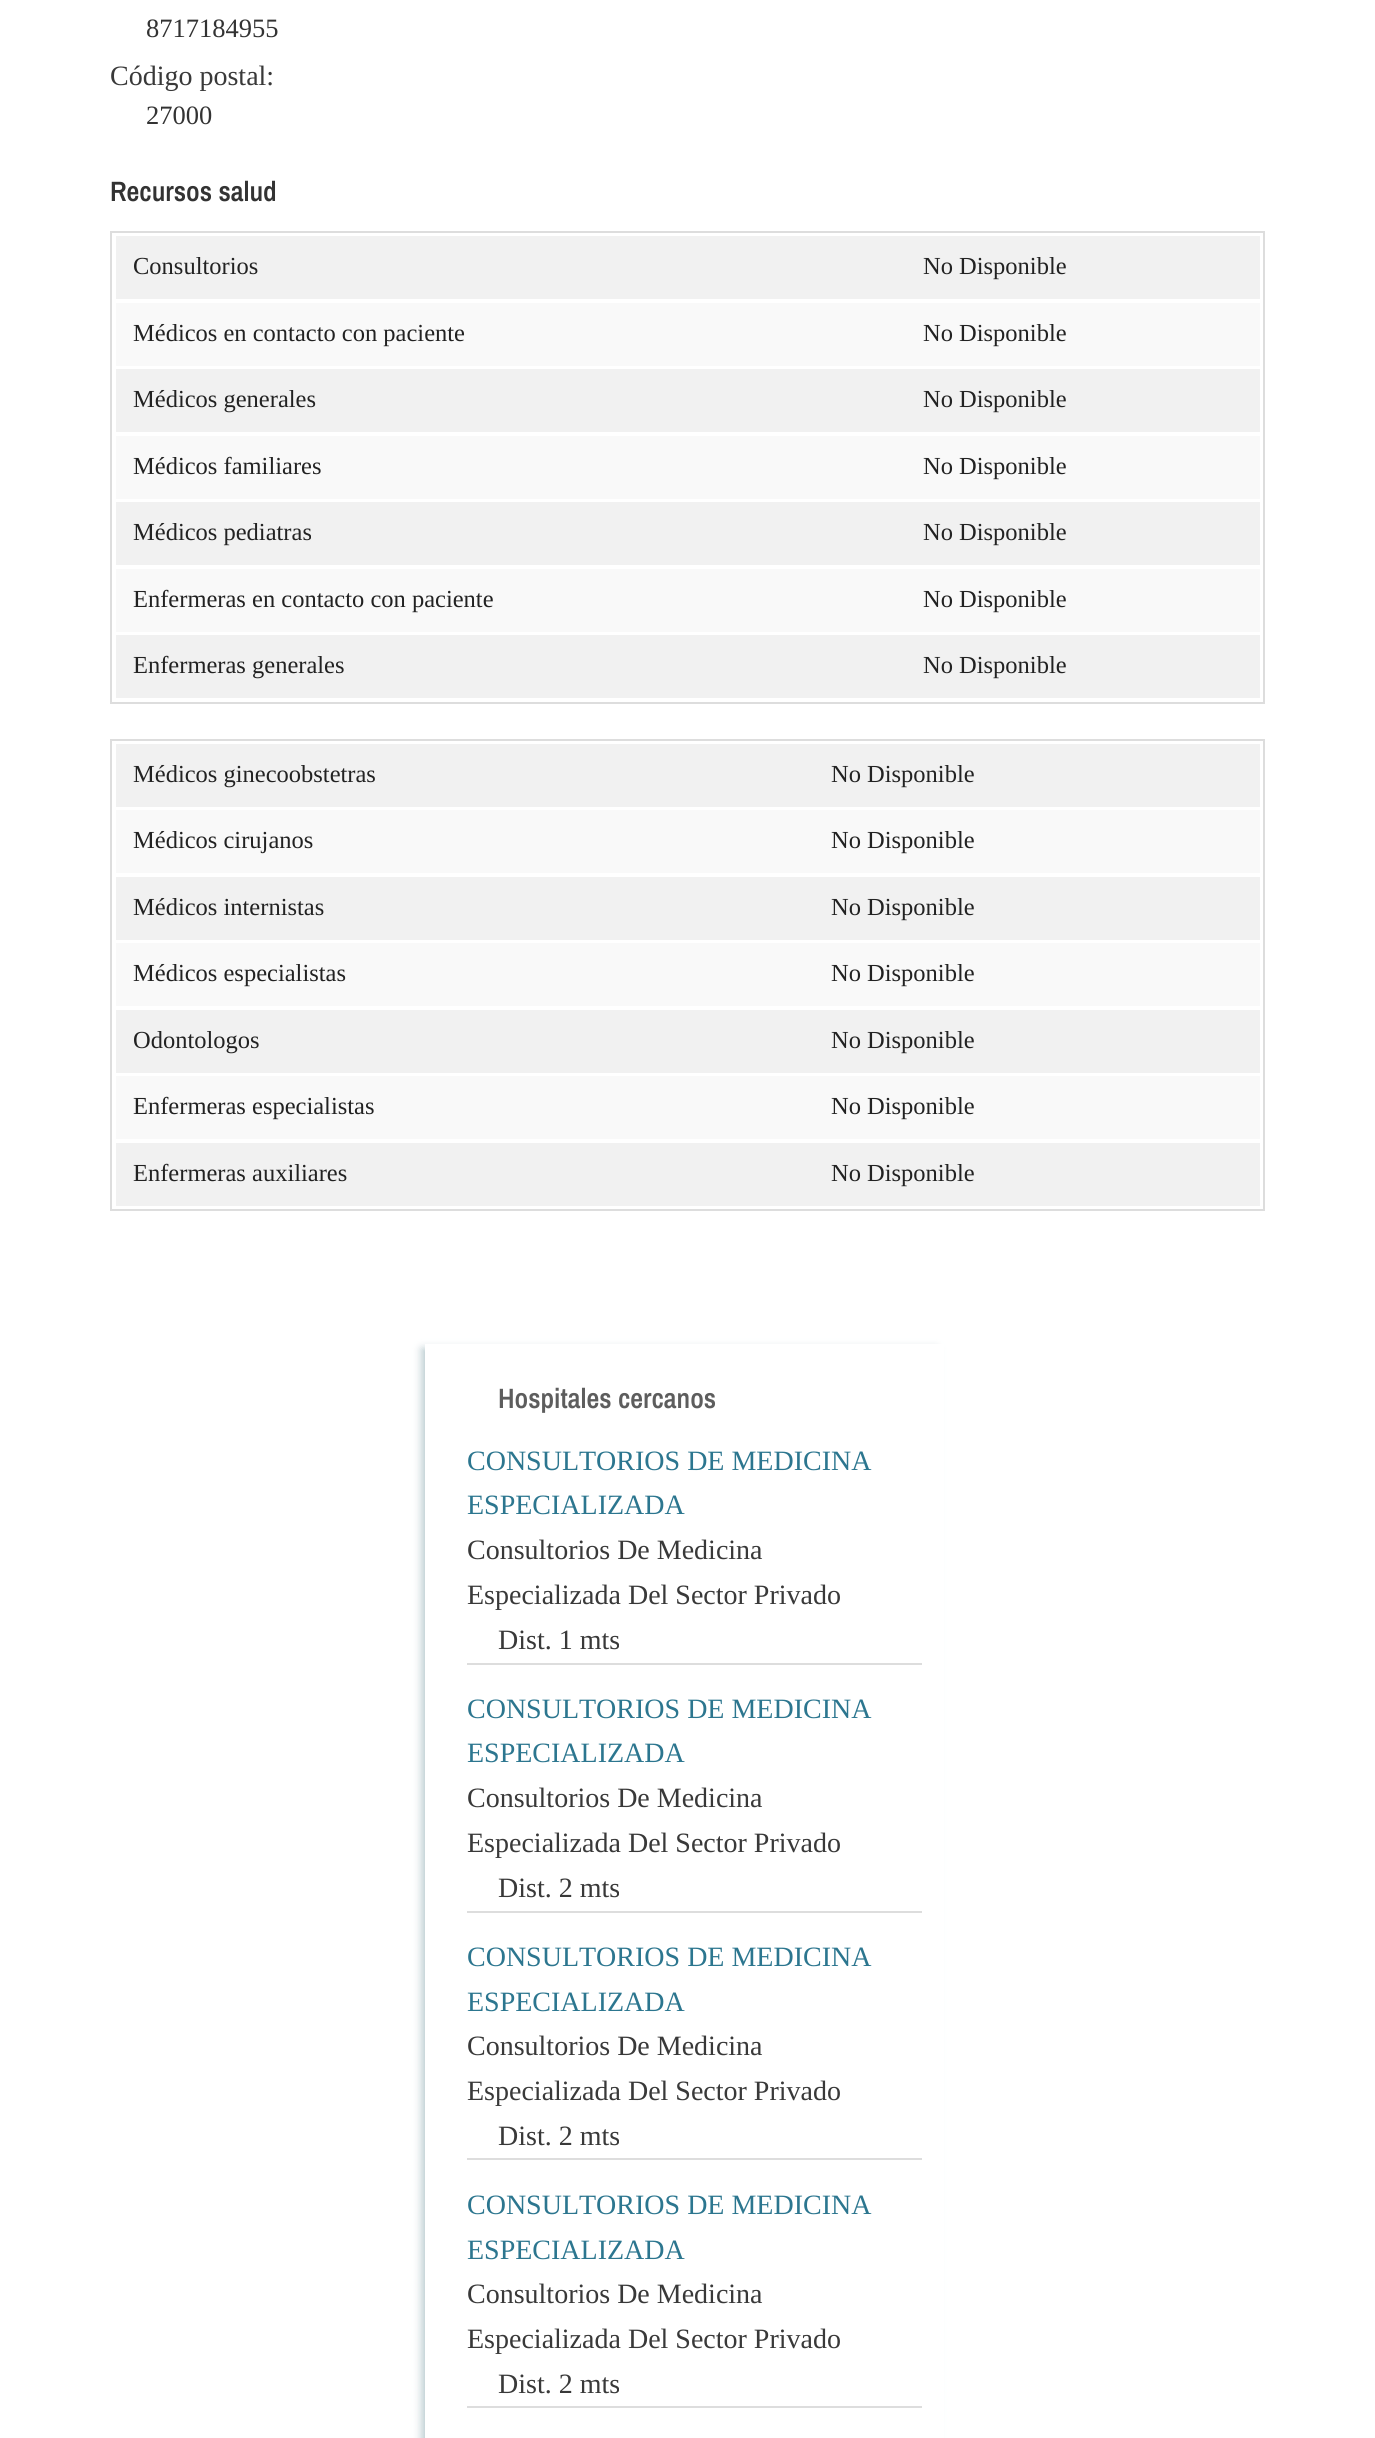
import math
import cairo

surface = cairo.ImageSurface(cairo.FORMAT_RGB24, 1375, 2438)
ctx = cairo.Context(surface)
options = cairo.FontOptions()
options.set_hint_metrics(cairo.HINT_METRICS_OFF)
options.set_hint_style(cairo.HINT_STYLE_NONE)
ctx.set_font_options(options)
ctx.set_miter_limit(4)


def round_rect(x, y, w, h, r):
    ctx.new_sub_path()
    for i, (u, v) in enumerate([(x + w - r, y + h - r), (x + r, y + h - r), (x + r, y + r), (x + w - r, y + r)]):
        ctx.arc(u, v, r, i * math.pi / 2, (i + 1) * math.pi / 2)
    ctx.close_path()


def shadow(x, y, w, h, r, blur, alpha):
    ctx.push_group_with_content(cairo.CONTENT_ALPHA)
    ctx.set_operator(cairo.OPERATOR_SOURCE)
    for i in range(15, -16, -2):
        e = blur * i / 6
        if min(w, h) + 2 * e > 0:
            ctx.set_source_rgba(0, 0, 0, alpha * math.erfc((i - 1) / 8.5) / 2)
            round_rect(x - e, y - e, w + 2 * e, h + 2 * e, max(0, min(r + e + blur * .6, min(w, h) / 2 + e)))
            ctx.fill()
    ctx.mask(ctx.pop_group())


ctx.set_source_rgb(1, 1, 1)
ctx.paint()
ctx.select_font_face("Liberation Serif")
ctx.set_font_size(26.5)
ctx.set_source_rgb(0.2, 0.2, 0.2)
ctx.move_to(146, 37)
ctx.show_text("8717184955")
ctx.set_font_size(28)
ctx.set_source_rgb(0.224, 0.224, 0.224)
ctx.move_to(110, 85)
ctx.show_text("Código postal:")
ctx.set_font_size(26.5)
ctx.set_source_rgb(0.2, 0.2, 0.2)
ctx.move_to(146, 124)
ctx.show_text("27000")
ctx.select_font_face("Archivo Narrow SemiBold")
ctx.set_font_size(28)
ctx.move_to(110, 201)
ctx.show_text("Recursos salud")
ctx.rectangle(111, 232, 1153, 471)
ctx.set_source_rgb(0.867, 0.867, 0.867)
ctx.stroke()
ctx.set_source_rgb(0.945, 0.945, 0.945)
ctx.rectangle(116, 236, 1144, 63)
ctx.fill()
ctx.select_font_face("Liberation Serif")
ctx.set_font_size(24.5)
ctx.set_source_rgb(0.133, 0.133, 0.133)
ctx.move_to(133, 274)
ctx.show_text("Consultorios")
ctx.move_to(923, 274)
ctx.show_text("No Disponible")
ctx.set_source_rgb(0.976, 0.976, 0.976)
ctx.rectangle(116, 303, 1144, 63)
ctx.fill()
ctx.set_source_rgb(0.133, 0.133, 0.133)
ctx.move_to(133, 341)
ctx.show_text("Médicos en contacto con paciente")
ctx.move_to(923, 341)
ctx.show_text("No Disponible")
ctx.set_source_rgb(0.945, 0.945, 0.945)
ctx.rectangle(116, 369, 1144, 63)
ctx.fill()
ctx.set_source_rgb(0.133, 0.133, 0.133)
ctx.move_to(133, 407)
ctx.show_text("Médicos generales")
ctx.move_to(923, 407)
ctx.show_text("No Disponible")
ctx.set_source_rgb(0.976, 0.976, 0.976)
ctx.rectangle(116, 436, 1144, 63)
ctx.fill()
ctx.set_source_rgb(0.133, 0.133, 0.133)
ctx.move_to(133, 474)
ctx.show_text("Médicos familiares")
ctx.move_to(923, 474)
ctx.show_text("No Disponible")
ctx.set_source_rgb(0.945, 0.945, 0.945)
ctx.rectangle(116, 502, 1144, 63)
ctx.fill()
ctx.set_source_rgb(0.133, 0.133, 0.133)
ctx.move_to(133, 540)
ctx.show_text("Médicos pediatras")
ctx.move_to(923, 540)
ctx.show_text("No Disponible")
ctx.set_source_rgb(0.976, 0.976, 0.976)
ctx.rectangle(116, 569, 1144, 63)
ctx.fill()
ctx.set_source_rgb(0.133, 0.133, 0.133)
ctx.move_to(133, 607)
ctx.show_text("Enfermeras en contacto con paciente")
ctx.move_to(923, 607)
ctx.show_text("No Disponible")
ctx.set_source_rgb(0.945, 0.945, 0.945)
ctx.rectangle(116, 635, 1144, 63)
ctx.fill()
ctx.set_source_rgb(0.133, 0.133, 0.133)
ctx.move_to(133, 673)
ctx.show_text("Enfermeras generales")
ctx.move_to(923, 673)
ctx.show_text("No Disponible")
ctx.rectangle(111, 740, 1153, 470)
ctx.set_source_rgb(0.867, 0.867, 0.867)
ctx.stroke()
ctx.set_source_rgb(0.945, 0.945, 0.945)
ctx.rectangle(116, 744, 1144, 63)
ctx.fill()
ctx.set_source_rgb(0.133, 0.133, 0.133)
ctx.move_to(133, 782)
ctx.show_text("Médicos ginecoobstetras")
ctx.move_to(831, 782)
ctx.show_text("No Disponible")
ctx.set_source_rgb(0.976, 0.976, 0.976)
ctx.rectangle(116, 810, 1144, 63)
ctx.fill()
ctx.set_source_rgb(0.133, 0.133, 0.133)
ctx.move_to(133, 848)
ctx.show_text("Médicos cirujanos")
ctx.move_to(831, 848)
ctx.show_text("No Disponible")
ctx.set_source_rgb(0.945, 0.945, 0.945)
ctx.rectangle(116, 877, 1144, 63)
ctx.fill()
ctx.set_source_rgb(0.133, 0.133, 0.133)
ctx.move_to(133, 915)
ctx.show_text("Médicos internistas")
ctx.move_to(831, 915)
ctx.show_text("No Disponible")
ctx.set_source_rgb(0.976, 0.976, 0.976)
ctx.rectangle(116, 943, 1144, 63)
ctx.fill()
ctx.set_source_rgb(0.133, 0.133, 0.133)
ctx.move_to(133, 981)
ctx.show_text("Médicos especialistas")
ctx.move_to(831, 981)
ctx.show_text("No Disponible")
ctx.set_source_rgb(0.945, 0.945, 0.945)
ctx.rectangle(116, 1010, 1144, 63)
ctx.fill()
ctx.set_source_rgb(0.133, 0.133, 0.133)
ctx.move_to(133, 1048)
ctx.show_text("Odontologos")
ctx.move_to(831, 1048)
ctx.show_text("No Disponible")
ctx.set_source_rgb(0.976, 0.976, 0.976)
ctx.rectangle(116, 1076, 1144, 63)
ctx.fill()
ctx.set_source_rgb(0.133, 0.133, 0.133)
ctx.move_to(133, 1114)
ctx.show_text("Enfermeras especialistas")
ctx.move_to(831, 1114)
ctx.show_text("No Disponible")
ctx.set_source_rgb(0.945, 0.945, 0.945)
ctx.rectangle(116, 1143, 1144, 63)
ctx.fill()
ctx.set_source_rgb(0.133, 0.133, 0.133)
ctx.move_to(133, 1181)
ctx.show_text("Enfermeras auxiliares")
ctx.move_to(831, 1181)
ctx.show_text("No Disponible")
ctx.set_source_rgb(0.427, 0.573, 0.608)
shadow(422, 1349, 514, 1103, 0, 4.5, 0.5)
ctx.set_source_rgb(1, 1, 1)
ctx.rectangle(425, 1344, 519, 1094)
ctx.fill()
ctx.select_font_face("Archivo Narrow SemiBold")
ctx.set_font_size(28)
ctx.set_source_rgb(0.365, 0.365, 0.365)
ctx.move_to(498, 1408)
ctx.show_text("Hospitales cercanos")
ctx.set_source_rgb(0.867, 0.867, 0.867)
ctx.rectangle(467, 1663, 455, 2)
ctx.fill()
ctx.select_font_face("Liberation Serif")
ctx.set_source_rgb(0.173, 0.463, 0.561)
ctx.move_to(467, 1470)
ctx.show_text("CONSULTORIOS DE MEDICINA")
ctx.move_to(467, 1514)
ctx.show_text("ESPECIALIZADA")
ctx.set_source_rgb(0.224, 0.224, 0.224)
ctx.move_to(467, 1559)
ctx.show_text("Consultorios De Medicina")
ctx.move_to(467, 1604)
ctx.show_text("Especializada Del Sector Privado")
ctx.move_to(498, 1649)
ctx.show_text("Dist. 1 mts")
ctx.set_source_rgb(0.867, 0.867, 0.867)
ctx.rectangle(467, 1911, 455, 2)
ctx.fill()
ctx.set_source_rgb(0.173, 0.463, 0.561)
ctx.move_to(467, 1718)
ctx.show_text("CONSULTORIOS DE MEDICINA")
ctx.move_to(467, 1762)
ctx.show_text("ESPECIALIZADA")
ctx.set_source_rgb(0.224, 0.224, 0.224)
ctx.move_to(467, 1807)
ctx.show_text("Consultorios De Medicina")
ctx.move_to(467, 1852)
ctx.show_text("Especializada Del Sector Privado")
ctx.move_to(498, 1897)
ctx.show_text("Dist. 2 mts")
ctx.set_source_rgb(0.867, 0.867, 0.867)
ctx.rectangle(467, 2158, 455, 2)
ctx.fill()
ctx.set_source_rgb(0.173, 0.463, 0.561)
ctx.move_to(467, 1966)
ctx.show_text("CONSULTORIOS DE MEDICINA")
ctx.move_to(467, 2011)
ctx.show_text("ESPECIALIZADA")
ctx.set_source_rgb(0.224, 0.224, 0.224)
ctx.move_to(467, 2055)
ctx.show_text("Consultorios De Medicina")
ctx.move_to(467, 2100)
ctx.show_text("Especializada Del Sector Privado")
ctx.move_to(498, 2145)
ctx.show_text("Dist. 2 mts")
ctx.set_source_rgb(0.867, 0.867, 0.867)
ctx.rectangle(467, 2406, 455, 2)
ctx.fill()
ctx.set_source_rgb(0.173, 0.463, 0.561)
ctx.move_to(467, 2214)
ctx.show_text("CONSULTORIOS DE MEDICINA")
ctx.move_to(467, 2259)
ctx.show_text("ESPECIALIZADA")
ctx.set_source_rgb(0.224, 0.224, 0.224)
ctx.move_to(467, 2303)
ctx.show_text("Consultorios De Medicina")
ctx.move_to(467, 2348)
ctx.show_text("Especializada Del Sector Privado")
ctx.move_to(498, 2393)
ctx.show_text("Dist. 2 mts")
surface.write_to_png("page.png")
